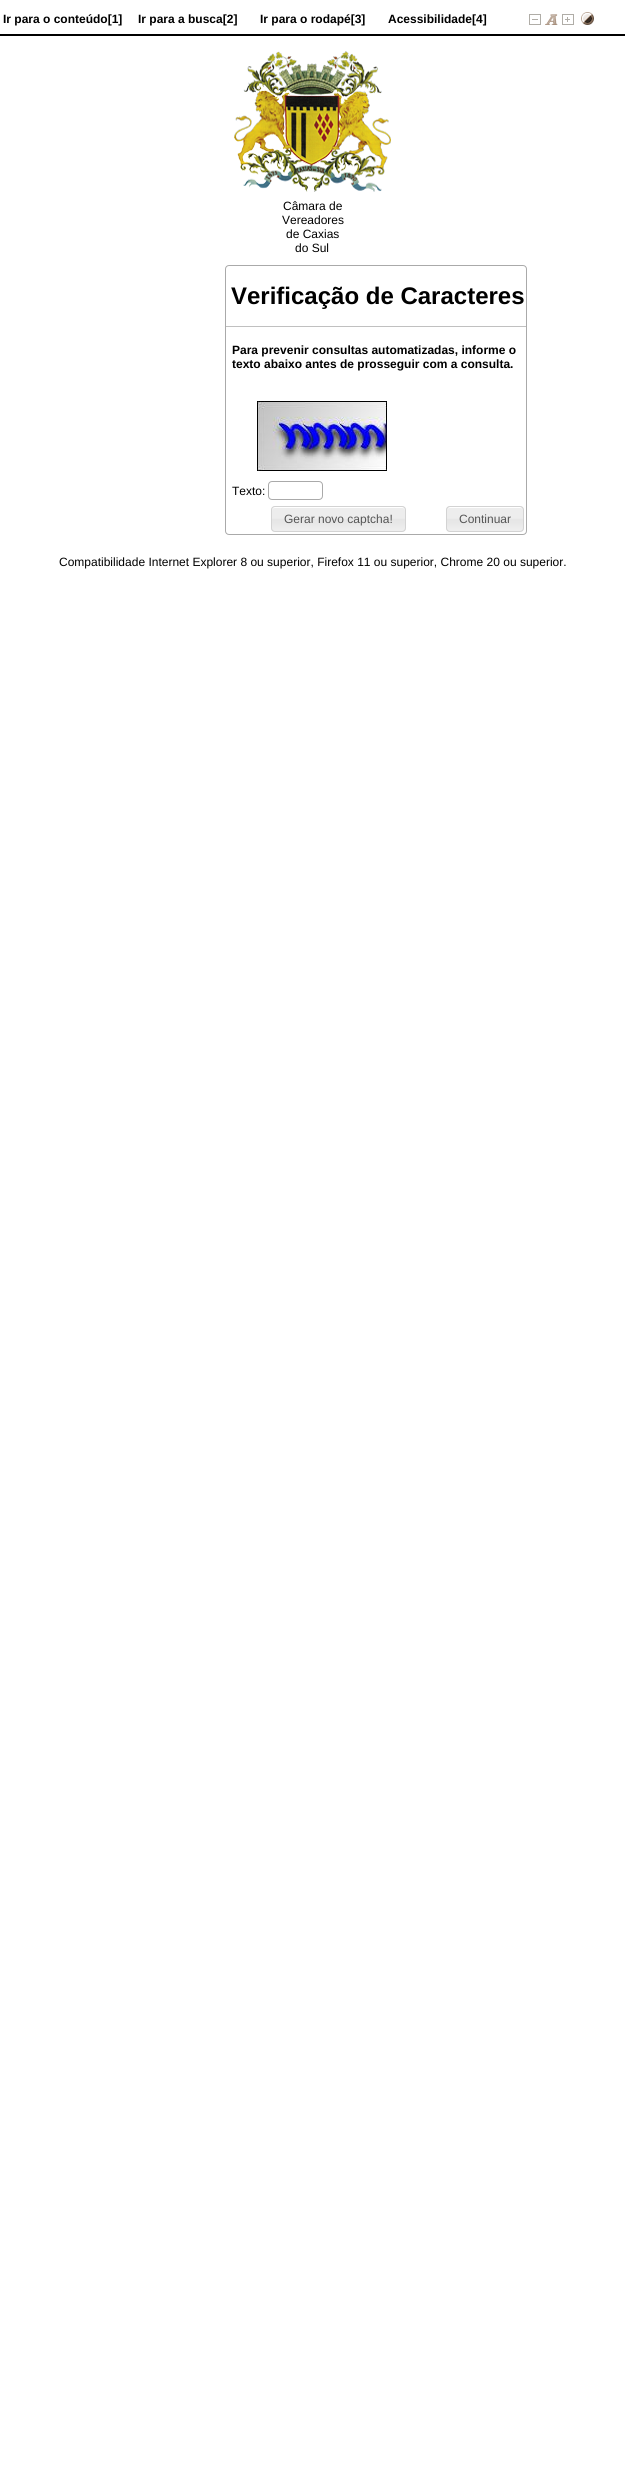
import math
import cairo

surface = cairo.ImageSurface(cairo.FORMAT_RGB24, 625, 2491)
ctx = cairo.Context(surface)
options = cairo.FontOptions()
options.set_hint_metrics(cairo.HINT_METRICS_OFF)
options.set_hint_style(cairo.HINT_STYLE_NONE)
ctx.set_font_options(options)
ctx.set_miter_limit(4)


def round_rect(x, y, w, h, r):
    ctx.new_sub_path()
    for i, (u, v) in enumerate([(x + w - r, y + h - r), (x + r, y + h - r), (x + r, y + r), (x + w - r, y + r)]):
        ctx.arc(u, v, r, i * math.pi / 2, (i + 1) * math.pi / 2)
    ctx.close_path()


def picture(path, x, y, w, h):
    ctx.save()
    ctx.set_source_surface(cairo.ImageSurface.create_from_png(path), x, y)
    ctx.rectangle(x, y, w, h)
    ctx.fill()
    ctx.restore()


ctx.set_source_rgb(1, 1, 1)
ctx.paint()
ctx.select_font_face("Liberation Sans", cairo.FONT_SLANT_NORMAL, cairo.FONT_WEIGHT_BOLD)
ctx.set_font_size(12)
ctx.set_source_rgb(0, 0, 0)
ctx.move_to(3, 23)
ctx.show_text("Ir para o conteúdo[1]")
ctx.move_to(138, 23)
ctx.show_text("Ir para a busca[2]")
ctx.move_to(260, 23)
ctx.show_text("Ir para o rodapé[3]")
ctx.move_to(388, 23)
ctx.show_text("Acessibilidade[4]")
picture("img1.png", 529, 14, 12, 11)
picture("img2.png", 545, 14, 13, 11)
picture("img3.png", 562, 14, 12, 11)
picture("img4.png", 581, 12, 13, 13)
ctx.rectangle(0, 34, 625, 2)
ctx.fill()
picture("img5.png", 234, 51, 157, 141)
ctx.select_font_face("Liberation Sans")
ctx.move_to(283, 210)
ctx.show_text("Câmara de")
ctx.move_to(282, 224)
ctx.show_text("Vereadores")
ctx.move_to(286, 238)
ctx.show_text("de Caxias")
ctx.move_to(295, 252)
ctx.show_text("do Sul")
round_rect(225.5, 265.5, 301, 269, 3.5)
ctx.set_source_rgb(0.667, 0.667, 0.667)
ctx.set_line_width(1)
ctx.stroke()
ctx.set_source_rgb(0.753, 0.753, 0.753)
ctx.rectangle(226, 326, 300, 1)
ctx.fill()
ctx.select_font_face("Liberation Sans", cairo.FONT_SLANT_NORMAL, cairo.FONT_WEIGHT_BOLD)
ctx.set_font_size(24)
ctx.set_source_rgb(0, 0, 0)
ctx.move_to(231, 304)
ctx.show_text("Verificação de Caracteres")
ctx.set_font_size(12)
ctx.move_to(232, 354)
ctx.show_text("Para prevenir consultas automatizadas, informe o")
ctx.move_to(232, 368)
ctx.show_text("texto abaixo antes de prosseguir com a consulta.")
picture("img6.png", 257, 401, 130, 70)
ctx.select_font_face("Liberation Sans")
ctx.move_to(232, 495)
ctx.show_text("Texto:")
round_rect(268.5, 481.5, 54, 18, 3.5)
ctx.set_source_rgb(0.667, 0.667, 0.667)
ctx.stroke()
picture("img7.png", 271, 506, 135, 26)
ctx.set_source_rgb(1, 1, 1)
ctx.new_path()
ctx.move_to(275, 508)
ctx.line_to(402, 508)
ctx.curve_to(404, 508, 405, 509, 405, 511)
ctx.curve_to(405, 509, 405, 507, 403, 507)
ctx.line_to(274, 507)
ctx.curve_to(272, 507, 272, 509, 272, 511)
ctx.curve_to(272, 509, 273, 508, 275, 508)
ctx.close_path()
ctx.fill()
round_rect(271.5, 506.5, 134, 25, 3.5)
ctx.set_source_rgb(0.827, 0.827, 0.827)
ctx.stroke()
ctx.set_source_rgb(0.333, 0.333, 0.333)
ctx.move_to(284, 523)
ctx.show_text("Gerar novo captcha!")
picture("img8.png", 446, 506, 78, 26)
ctx.set_source_rgb(1, 1, 1)
ctx.new_path()
ctx.move_to(450, 508)
ctx.line_to(520, 508)
ctx.curve_to(522, 508, 523, 509, 523, 511)
ctx.curve_to(523, 504, 512, 507, 508, 507)
ctx.line_to(462, 507)
ctx.curve_to(458, 507, 447, 504, 447, 511)
ctx.curve_to(447, 509, 448, 508, 450, 508)
ctx.close_path()
ctx.fill()
round_rect(446.5, 506.5, 77, 25, 3.5)
ctx.set_source_rgb(0.827, 0.827, 0.827)
ctx.stroke()
ctx.set_source_rgb(0.333, 0.333, 0.333)
ctx.move_to(459, 523)
ctx.show_text("Continuar")
ctx.set_source_rgb(0, 0, 0)
ctx.move_to(59, 566)
ctx.show_text("Compatibilidade Internet Explorer 8 ou superior, Firefox 11 ou superior, Chrome 20 ou superior.")
surface.write_to_png("page.png")
